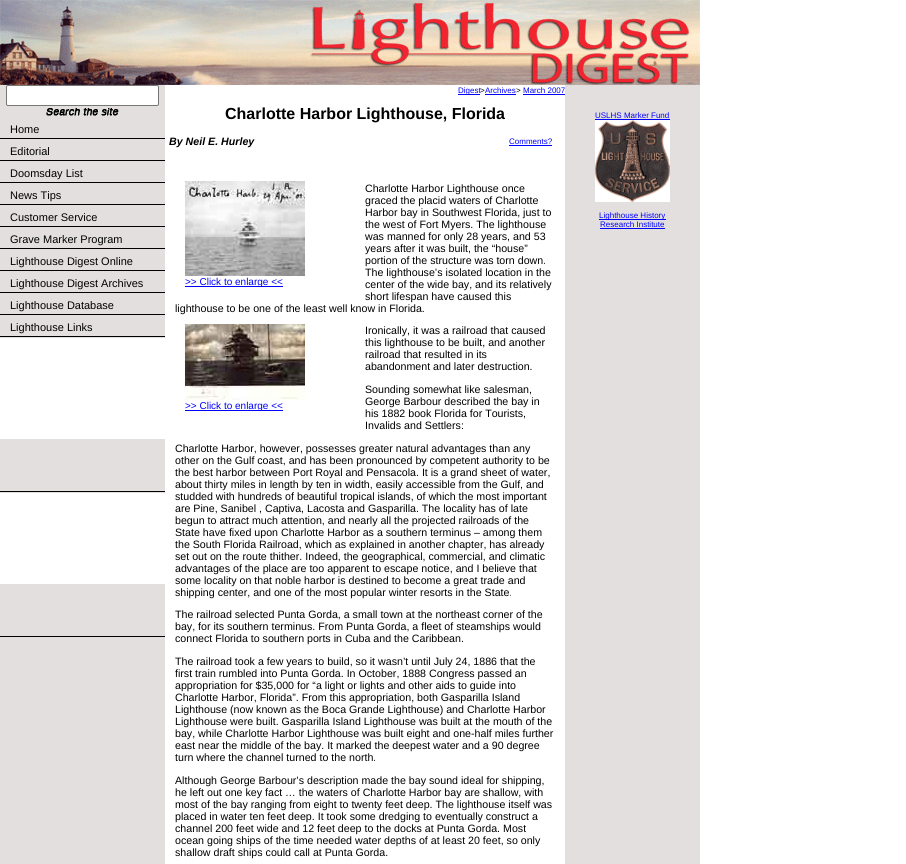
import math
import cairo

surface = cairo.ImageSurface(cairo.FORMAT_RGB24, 906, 864)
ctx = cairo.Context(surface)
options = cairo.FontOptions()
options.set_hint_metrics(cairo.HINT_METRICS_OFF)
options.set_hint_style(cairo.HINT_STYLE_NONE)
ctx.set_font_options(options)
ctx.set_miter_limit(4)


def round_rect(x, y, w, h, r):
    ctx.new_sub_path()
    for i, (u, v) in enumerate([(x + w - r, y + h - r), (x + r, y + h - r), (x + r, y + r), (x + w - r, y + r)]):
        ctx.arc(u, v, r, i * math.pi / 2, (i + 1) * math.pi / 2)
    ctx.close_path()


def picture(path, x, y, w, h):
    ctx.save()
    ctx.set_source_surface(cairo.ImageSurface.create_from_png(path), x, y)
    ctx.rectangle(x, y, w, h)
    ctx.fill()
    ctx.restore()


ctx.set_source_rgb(1, 1, 1)
ctx.paint()
picture("img1.png", 0, 0, 700, 85)
ctx.set_source_rgb(0.894, 0.875, 0.875)
ctx.rectangle(0, 85, 165, 779)
ctx.fill()
ctx.set_source_rgb(1, 1, 1)
round_rect(6.5, 85.5, 152, 20, 1.5)
ctx.fill_preserve()
ctx.set_source_rgb(0.463, 0.463, 0.463)
ctx.set_line_width(1)
ctx.stroke()
picture("img2.png", 46, 108, 73, 8)
picture("img3.png", 0, 118, 165, 22)
ctx.select_font_face("Liberation Sans")
ctx.set_font_size(11)
ctx.set_source_rgb(0, 0, 0)
ctx.move_to(10, 133)
ctx.show_text("Home")
picture("img3.png", 0, 140, 165, 22)
ctx.move_to(10, 155)
ctx.show_text("Editorial")
picture("img3.png", 0, 162, 165, 22)
ctx.move_to(10, 177)
ctx.show_text("Doomsday List")
picture("img3.png", 0, 184, 165, 22)
ctx.move_to(10, 199)
ctx.show_text("News Tips")
picture("img3.png", 0, 206, 165, 22)
ctx.move_to(10, 221)
ctx.show_text("Customer Service")
picture("img3.png", 0, 228, 165, 22)
ctx.move_to(10, 243)
ctx.show_text("Grave Marker Program")
picture("img3.png", 0, 250, 165, 22)
ctx.move_to(10, 265)
ctx.show_text("Lighthouse Digest Online")
picture("img3.png", 0, 272, 165, 22)
ctx.move_to(10, 287)
ctx.show_text("Lighthouse Digest Archives")
picture("img3.png", 0, 294, 165, 22)
ctx.move_to(10, 309)
ctx.show_text("Lighthouse Database")
picture("img3.png", 0, 316, 165, 22)
ctx.move_to(10, 331)
ctx.show_text("Lighthouse Links")
ctx.set_source_rgb(1, 1, 1)
ctx.rectangle(0, 338, 165, 101)
ctx.fill()
picture("img4.png", 0, 439, 165, 54)
ctx.rectangle(0, 493, 165, 91)
ctx.fill()
picture("img4.png", 0, 584, 165, 54)
ctx.set_source_rgb(0, 0, 1)
ctx.rectangle(458, 94, 22, 1)
ctx.fill()
ctx.set_font_size(8)
ctx.move_to(458, 93)
ctx.show_text("Digest")
ctx.set_source_rgb(0, 0, 0)
ctx.move_to(480, 93)
ctx.show_text(">")
ctx.set_source_rgb(0, 0, 1)
ctx.move_to(485, 93)
ctx.show_text("Archives")
ctx.rectangle(485, 94, 31, 1)
ctx.fill()
ctx.set_source_rgb(0, 0, 0)
ctx.move_to(516, 93)
ctx.show_text(">")
ctx.set_source_rgb(0, 0, 1)
ctx.move_to(523, 93)
ctx.show_text("March 2007")
ctx.rectangle(523, 94, 42, 1)
ctx.fill()
ctx.select_font_face("Liberation Sans", cairo.FONT_SLANT_NORMAL, cairo.FONT_WEIGHT_BOLD)
ctx.set_font_size(16)
ctx.set_source_rgb(0, 0, 0)
ctx.move_to(225, 119)
ctx.show_text("Charlotte Harbor Lighthouse, Florida")
ctx.select_font_face("Liberation Sans", cairo.FONT_SLANT_ITALIC, cairo.FONT_WEIGHT_BOLD)
ctx.set_font_size(10.65)
ctx.move_to(169, 145)
ctx.show_text("By Neil E. Hurley")
ctx.select_font_face("Liberation Sans")
ctx.set_font_size(8)
ctx.set_source_rgb(0, 0, 1)
ctx.move_to(509, 144)
ctx.show_text("Comments?")
ctx.rectangle(509, 145, 43, 1)
ctx.fill()
ctx.set_font_size(10.65)
ctx.set_source_rgb(0, 0, 0)
ctx.move_to(365, 192)
ctx.show_text("Charlotte Harbor Lighthouse once")
ctx.move_to(365, 204)
ctx.show_text("graced the placid waters of Charlotte")
ctx.move_to(365, 216)
ctx.show_text("Harbor bay in Southwest Florida, just to")
ctx.move_to(365, 228)
ctx.show_text("the west of Fort Myers. The lighthouse")
ctx.move_to(365, 240)
ctx.show_text("was manned for only 28 years, and 53")
ctx.move_to(365, 252)
ctx.show_text("years after it was built, the “house”")
ctx.move_to(365, 264)
ctx.show_text("portion of the structure was torn down.")
ctx.move_to(365, 276)
ctx.show_text("The lighthouse’s isolated location in the")
ctx.move_to(365, 288)
ctx.show_text("center of the wide bay, and its relatively")
ctx.move_to(365, 300)
ctx.show_text("short lifespan have caused this")
ctx.move_to(175, 312)
ctx.show_text("lighthouse to be one of the least well know in Florida.")
picture("img5.png", 185, 324, 120, 76)
ctx.set_source_rgb(0, 0, 1)
ctx.rectangle(185, 410, 98, 1)
ctx.fill()
ctx.set_font_size(10)
ctx.move_to(185, 409)
ctx.show_text(">> Click to enlarge <<")
picture("img6.png", 185, 181, 120, 95)
ctx.rectangle(185, 286, 98, 1)
ctx.fill()
ctx.move_to(185, 285)
ctx.show_text(">> Click to enlarge <<")
ctx.set_font_size(10.65)
ctx.set_source_rgb(0, 0, 0)
ctx.move_to(365, 334)
ctx.show_text("Ironically, it was a railroad that caused")
ctx.move_to(365, 346)
ctx.show_text("this lighthouse to be built, and another")
ctx.move_to(365, 358)
ctx.show_text("railroad that resulted in its")
ctx.move_to(365, 370)
ctx.show_text("abandonment and later destruction.")
ctx.move_to(365, 393)
ctx.show_text("Sounding somewhat like salesman,")
ctx.move_to(365, 405)
ctx.show_text("George Barbour described the bay in")
ctx.move_to(365, 417)
ctx.show_text("his 1882 book Florida for Tourists,")
ctx.move_to(365, 429)
ctx.show_text("Invalids and Settlers:")
ctx.move_to(175, 452)
ctx.show_text("Charlotte Harbor, however, possesses greater natural advantages than any")
ctx.move_to(175, 464)
ctx.show_text("other on the Gulf coast, and has been pronounced by competent authority to be")
ctx.move_to(175, 476)
ctx.show_text("the best harbor between Port Royal and Pensacola. It is a grand sheet of water,")
ctx.move_to(175, 488)
ctx.show_text("about thirty miles in length by ten in width, easily accessible from the Gulf, and")
ctx.move_to(175, 500)
ctx.show_text("studded with hundreds of beautiful tropical islands, of which the most important")
ctx.move_to(175, 512)
ctx.show_text("are Pine, Sanibel , Captiva, Lacosta and Gasparilla. The locality has of late")
ctx.move_to(175, 524)
ctx.show_text("begun to attract much attention, and nearly all the projected railroads of the")
ctx.move_to(175, 536)
ctx.show_text("State have fixed upon Charlotte Harbor as a southern terminus – among them")
ctx.move_to(175, 548)
ctx.show_text("the South Florida Railroad, which as explained in another chapter, has already")
ctx.move_to(175, 560)
ctx.show_text("set out on the route thither. Indeed, the geographical, commercial, and climatic")
ctx.move_to(175, 572)
ctx.show_text("advantages of the place are too apparent to escape notice, and I believe that")
ctx.move_to(175, 584)
ctx.show_text("some locality on that noble harbor is destined to become a great trade and")
ctx.move_to(175, 596)
ctx.show_text("shipping center, and one of the most popular winter resorts in the State.")
ctx.move_to(175, 618)
ctx.show_text("The railroad selected Punta Gorda, a small town at the northeast corner of the")
ctx.move_to(175, 630)
ctx.show_text("bay, for its southern terminus. From Punta Gorda, a fleet of steamships would")
ctx.move_to(175, 642)
ctx.show_text("connect Florida to southern ports in Cuba and the Caribbean.")
ctx.move_to(175, 665)
ctx.show_text("The railroad took a few years to build, so it wasn’t until July 24, 1886 that the")
ctx.move_to(175, 677)
ctx.show_text("first train rumbled into Punta Gorda. In October, 1888 Congress passed an")
ctx.move_to(175, 689)
ctx.show_text("appropriation for $35,000 for “a light or lights and other aids to guide into")
ctx.move_to(175, 701)
ctx.show_text("Charlotte Harbor, Florida”. From this appropriation, both Gasparilla Island")
ctx.move_to(175, 713)
ctx.show_text("Lighthouse (now known as the Boca Grande Lighthouse) and Charlotte Harbor")
ctx.move_to(175, 725)
ctx.show_text("Lighthouse were built. Gasparilla Island Lighthouse was built at the mouth of the")
ctx.move_to(175, 737)
ctx.show_text("bay, while Charlotte Harbor Lighthouse was built eight and one-half miles further")
ctx.move_to(175, 749)
ctx.show_text("east near the middle of the bay. It marked the deepest water and a 90 degree")
ctx.move_to(175, 761)
ctx.show_text("turn where the channel turned to the north.")
ctx.move_to(175, 784)
ctx.show_text("Although George Barbour’s description made the bay sound ideal for shipping,")
ctx.move_to(175, 796)
ctx.show_text("he left out one key fact … the waters of Charlotte Harbor bay are shallow, with")
ctx.move_to(175, 808)
ctx.show_text("most of the bay ranging from eight to twenty feet deep. The lighthouse itself was")
ctx.move_to(175, 820)
ctx.show_text("placed in water ten feet deep. It took some dredging to eventually construct a")
ctx.move_to(175, 832)
ctx.show_text("channel 200 feet wide and 12 feet deep to the docks at Punta Gorda. Most")
ctx.move_to(175, 844)
ctx.show_text("ocean going ships of the time needed water depths of at least 20 feet, so only")
ctx.move_to(175, 856)
ctx.show_text("shallow draft ships could call at Punta Gorda.")
ctx.set_source_rgb(0.894, 0.875, 0.875)
ctx.rectangle(565, 85, 135, 779)
ctx.fill()
ctx.set_font_size(8)
ctx.set_source_rgb(0, 0, 1)
ctx.move_to(595, 118)
ctx.show_text("USLHS Marker Fund")
ctx.rectangle(595, 119, 75, 1)
ctx.fill()
picture("img7.png", 595, 120, 75, 82)
ctx.rectangle(599, 219, 67, 1)
ctx.fill()
ctx.move_to(599, 218)
ctx.show_text("Lighthouse History")
ctx.move_to(600, 227)
ctx.show_text("Research Institute")
ctx.rectangle(600, 228, 65, 1)
ctx.fill()
surface.write_to_png("page.png")
